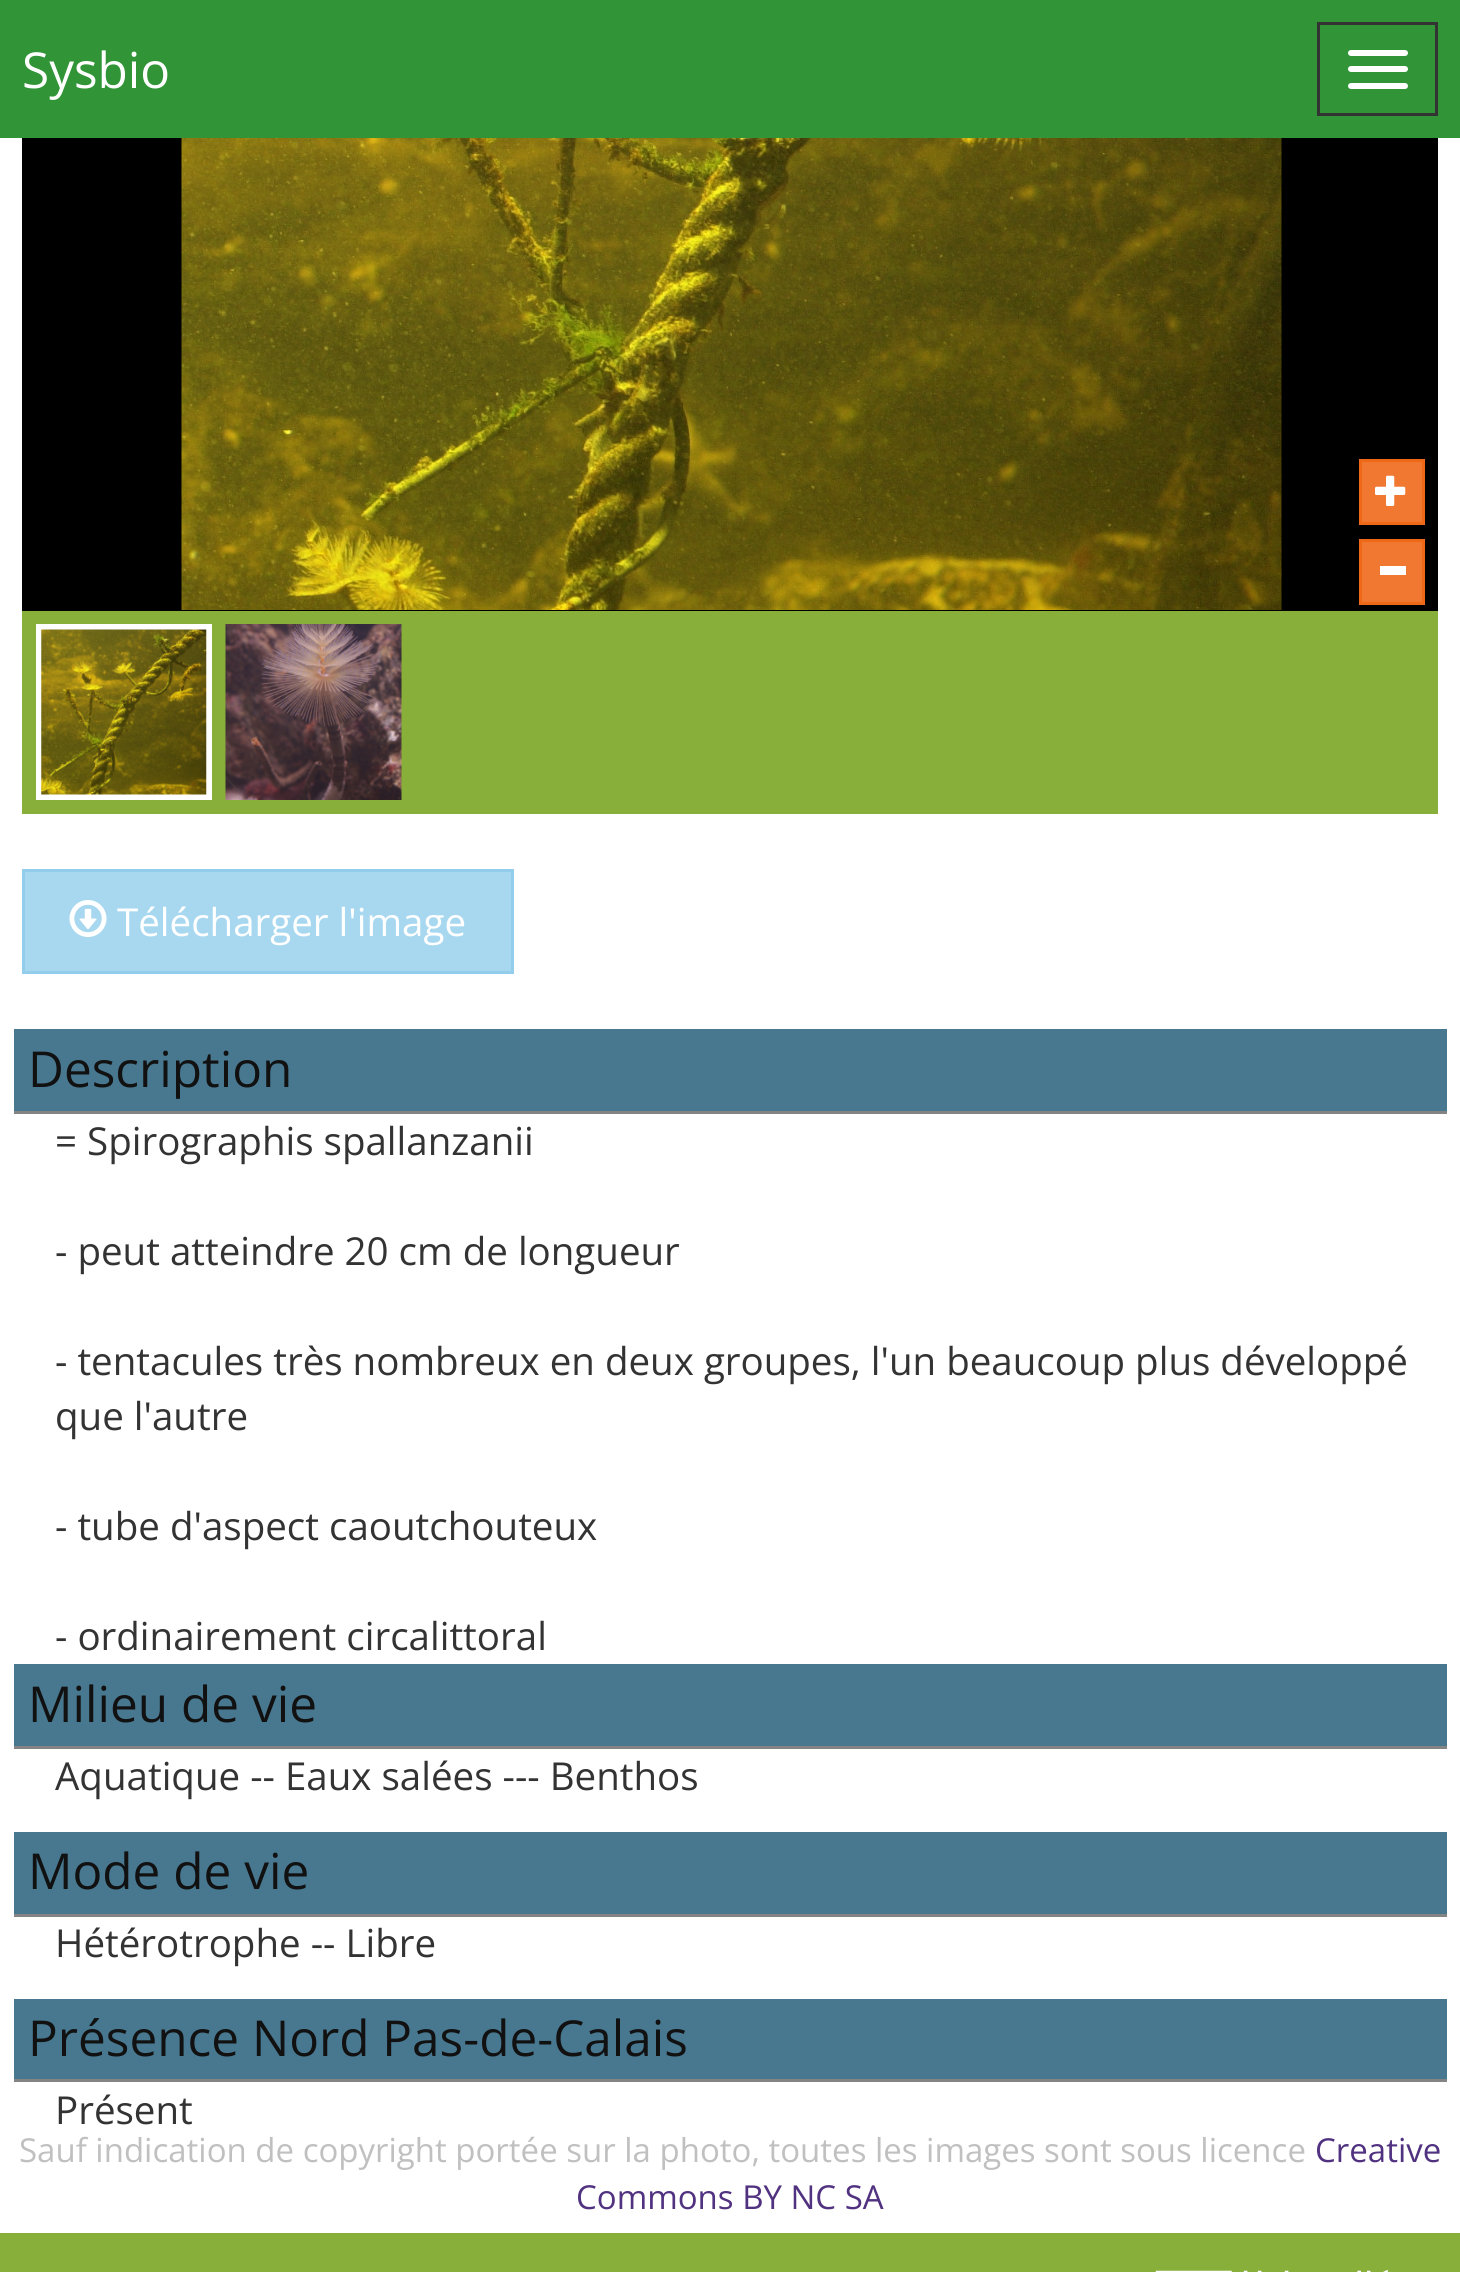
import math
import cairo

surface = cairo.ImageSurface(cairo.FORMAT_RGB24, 1460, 2272)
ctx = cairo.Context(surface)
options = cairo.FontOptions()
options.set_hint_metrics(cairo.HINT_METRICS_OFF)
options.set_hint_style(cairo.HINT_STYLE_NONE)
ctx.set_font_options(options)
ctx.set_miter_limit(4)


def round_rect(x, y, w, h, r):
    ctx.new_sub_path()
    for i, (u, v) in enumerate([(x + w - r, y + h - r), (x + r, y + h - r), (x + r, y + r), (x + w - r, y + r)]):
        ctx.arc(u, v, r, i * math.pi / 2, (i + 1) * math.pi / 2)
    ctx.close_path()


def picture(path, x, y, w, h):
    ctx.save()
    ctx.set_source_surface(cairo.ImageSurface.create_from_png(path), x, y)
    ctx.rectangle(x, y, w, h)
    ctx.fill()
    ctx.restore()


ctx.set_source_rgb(1, 1, 1)
ctx.paint()
ctx.set_source_rgb(0.192, 0.58, 0.216)
ctx.rectangle(0, 0, 1460, 138)
ctx.fill()
ctx.select_font_face("Open Sans")
ctx.set_font_size(49.5)
ctx.set_source_rgb(1, 1, 1)
ctx.move_to(22, 88)
ctx.show_text("Sysbio")
ctx.rectangle(1318.5, 23.5, 118, 91)
ctx.set_source_rgb(0.2, 0.2, 0.2)
ctx.set_line_width(3)
ctx.stroke()
ctx.set_source_rgb(1, 1, 1)
round_rect(1348, 50, 60, 6, 3)
ctx.fill()
round_rect(1348, 66, 60, 6, 3)
ctx.fill()
round_rect(1348, 83, 60, 6, 3)
ctx.fill()
ctx.set_source_rgb(0.529, 0.686, 0.227)
ctx.rectangle(22, 611, 1416, 203)
ctx.fill()
ctx.set_source_rgb(0, 0, 0)
ctx.rectangle(22, 138, 1416, 473)
ctx.fill()
picture("img1.png", 181, 138, 1101, 472)
ctx.set_source_rgb(0.941, 0.471, 0.188)
ctx.rectangle(1360.5, 460.5, 63, 63)
ctx.fill_preserve()
ctx.set_source_rgb(0.933, 0.408, 0.094)
ctx.stroke()
picture("img2.png", 1375, 475, 31, 31)
ctx.set_source_rgb(0.941, 0.471, 0.188)
ctx.rectangle(1360.5, 540.5, 63, 63)
ctx.fill_preserve()
ctx.set_source_rgb(0.933, 0.408, 0.094)
ctx.stroke()
ctx.set_source_rgb(1, 1, 1)
ctx.rectangle(1380, 566, 26, 9)
ctx.fill()
ctx.rectangle(39, 627, 170, 170)
ctx.set_line_width(6)
ctx.stroke()
picture("img3.png", 41, 629, 166, 166)
picture("img4.png", 225, 624, 177, 176)
ctx.set_source_rgb(0.659, 0.847, 0.941)
ctx.rectangle(23.5, 870.5, 489, 102)
ctx.fill_preserve()
ctx.set_source_rgb(0.573, 0.808, 0.925)
ctx.set_line_width(3)
ctx.stroke()
picture("img5.png", 69, 900, 38, 37)
ctx.set_font_size(38.5)
ctx.set_source_rgb(1, 1, 1)
ctx.move_to(117, 936)
ctx.show_text("Télécharger l'image")
ctx.set_source_rgb(0.282, 0.471, 0.565)
ctx.rectangle(14, 1029, 1433, 82)
ctx.fill()
ctx.set_source_rgb(0.518, 0.518, 0.518)
ctx.rectangle(14, 1111, 1433, 3)
ctx.fill()
ctx.set_font_size(49.5)
ctx.set_source_rgb(0.067, 0.067, 0.067)
ctx.move_to(28, 1087)
ctx.show_text("Description")
ctx.set_font_size(38.5)
ctx.set_source_rgb(0.2, 0.2, 0.2)
ctx.move_to(55, 1155)
ctx.show_text("= Spirographis spallanzanii")
ctx.move_to(55, 1265)
ctx.show_text("- peut atteindre 20 cm de longueur")
ctx.move_to(55, 1375)
ctx.show_text("- tentacules très nombreux en deux groupes, l'un beaucoup plus développé")
ctx.move_to(55, 1430)
ctx.show_text("que l'autre")
ctx.move_to(55, 1540)
ctx.show_text("- tube d'aspect caoutchouteux")
ctx.move_to(55, 1650)
ctx.show_text("- ordinairement circalittoral")
ctx.set_source_rgb(0.282, 0.471, 0.565)
ctx.rectangle(14, 1664, 1433, 82)
ctx.fill()
ctx.set_source_rgb(0.518, 0.518, 0.518)
ctx.rectangle(14, 1746, 1433, 3)
ctx.fill()
ctx.set_font_size(49.5)
ctx.set_source_rgb(0.067, 0.067, 0.067)
ctx.move_to(28, 1722)
ctx.show_text("Milieu de vie")
ctx.set_font_size(38.5)
ctx.set_source_rgb(0.2, 0.2, 0.2)
ctx.move_to(55, 1790)
ctx.show_text("Aquatique -- Eaux salées --- Benthos")
ctx.set_source_rgb(0.282, 0.471, 0.565)
ctx.rectangle(14, 1832, 1433, 82)
ctx.fill()
ctx.set_source_rgb(0.518, 0.518, 0.518)
ctx.rectangle(14, 1914, 1433, 3)
ctx.fill()
ctx.set_font_size(49.5)
ctx.set_source_rgb(0.067, 0.067, 0.067)
ctx.move_to(28, 1889)
ctx.show_text("Mode de vie")
ctx.set_font_size(38.5)
ctx.set_source_rgb(0.2, 0.2, 0.2)
ctx.move_to(55, 1957)
ctx.show_text("Hétérotrophe -- Libre")
ctx.set_source_rgb(0.282, 0.471, 0.565)
ctx.rectangle(14, 1999, 1433, 80)
ctx.fill()
ctx.set_source_rgb(0.518, 0.518, 0.518)
ctx.rectangle(14, 2079, 1433, 3)
ctx.fill()
ctx.set_font_size(49.5)
ctx.set_source_rgb(0.067, 0.067, 0.067)
ctx.move_to(28, 2056)
ctx.show_text("Présence Nord Pas-de-Calais")
ctx.set_font_size(38.5)
ctx.set_source_rgb(0.2, 0.2, 0.2)
ctx.move_to(55, 2124)
ctx.show_text("Présent")
ctx.set_source_rgb(0.529, 0.686, 0.227)
ctx.rectangle(0, 2233, 1460, 39)
ctx.fill()
ctx.set_font_size(33)
ctx.set_source_rgb(0.753, 0.753, 0.753)
ctx.move_to(19, 2162)
ctx.show_text("Sauf indication de copyright portée sur la photo, toutes les images sont sous licence")
ctx.set_source_rgb(0.318, 0.196, 0.502)
ctx.move_to(1315, 2162)
ctx.show_text("Creative")
ctx.move_to(576, 2209)
ctx.show_text("Commons BY NC SA")
picture("img6.png", 1155, 2269, 233, 3)
surface.write_to_png("page.png")
